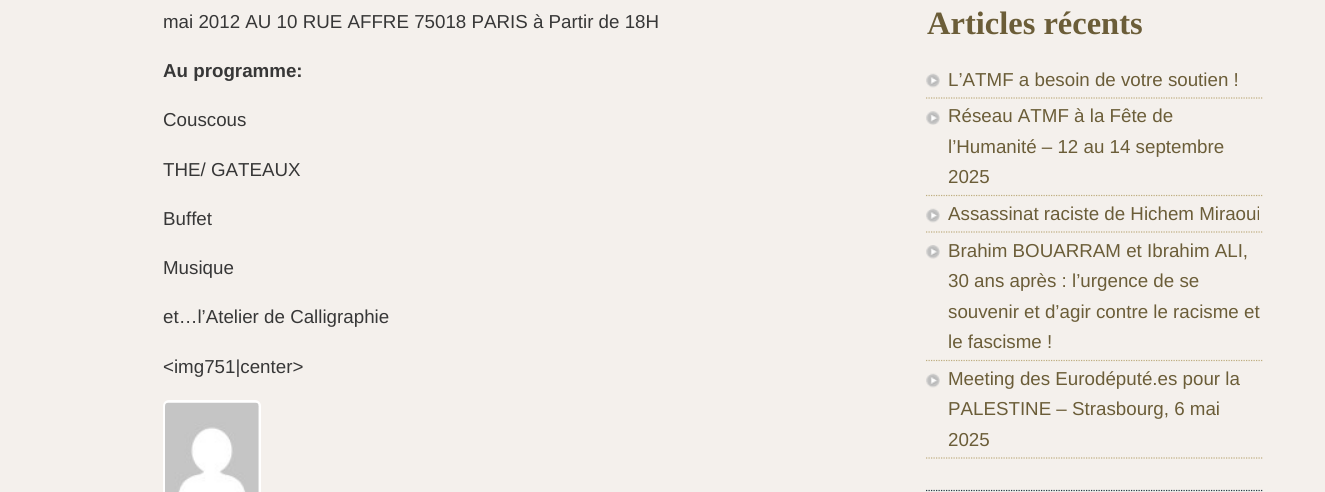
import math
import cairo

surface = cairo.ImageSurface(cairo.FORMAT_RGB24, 1325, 492)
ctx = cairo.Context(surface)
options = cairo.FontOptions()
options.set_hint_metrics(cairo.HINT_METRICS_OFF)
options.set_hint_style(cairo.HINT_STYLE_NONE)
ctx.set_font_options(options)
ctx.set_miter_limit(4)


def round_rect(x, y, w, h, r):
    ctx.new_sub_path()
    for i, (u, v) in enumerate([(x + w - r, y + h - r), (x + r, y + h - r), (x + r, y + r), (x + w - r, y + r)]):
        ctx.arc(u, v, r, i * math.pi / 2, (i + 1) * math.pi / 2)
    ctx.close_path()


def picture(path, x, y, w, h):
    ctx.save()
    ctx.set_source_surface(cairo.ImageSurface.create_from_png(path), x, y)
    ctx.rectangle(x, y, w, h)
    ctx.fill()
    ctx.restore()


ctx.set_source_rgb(0.957, 0.941, 0.922)
ctx.paint()
ctx.select_font_face("Liberation Sans")
ctx.set_font_size(18.75)
ctx.set_source_rgb(0.216, 0.216, 0.216)
ctx.move_to(163, 28)
ctx.show_text("mai 2012 AU 10 RUE AFFRE 75018 PARIS à Partir de 18H")
ctx.select_font_face("Liberation Sans", cairo.FONT_SLANT_NORMAL, cairo.FONT_WEIGHT_BOLD)
ctx.move_to(163, 77)
ctx.show_text("Au programme:")
ctx.select_font_face("Liberation Sans")
ctx.move_to(163, 126)
ctx.show_text("Couscous")
ctx.move_to(163, 176)
ctx.show_text("THE/ GATEAUX")
ctx.move_to(163, 225)
ctx.show_text("Buffet")
ctx.move_to(163, 274)
ctx.show_text("Musique")
ctx.move_to(163, 323)
ctx.show_text("et…l’Atelier de Calligraphie")
ctx.move_to(163, 373)
ctx.show_text("<img751|center>")
round_rect(164.5, 401.5, 95, 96, 4.5)
ctx.set_source_rgb(1, 1, 1)
ctx.set_line_width(3)
ctx.stroke()
picture("img1.png", 165, 402, 94, 90)
ctx.new_path()
ctx.move_to(926, 490.5)
ctx.line_to(1262.5, 490.5)
ctx.set_source_rgb(0.145, 0.224, 0.267)
ctx.set_line_width(1.2)
ctx.set_dash([1.25, 1.25])
ctx.stroke()
ctx.select_font_face("Liberation Serif", cairo.FONT_SLANT_NORMAL, cairo.FONT_WEIGHT_BOLD)
ctx.set_font_size(32.5)
ctx.set_source_rgb(0.42, 0.365, 0.22)
ctx.move_to(927, 34)
ctx.show_text("Articles récents")
picture("img2.png", 926, 73, 14, 15)
ctx.new_path()
ctx.move_to(926, 98)
ctx.line_to(1262.5, 98)
ctx.set_source_rgb(0.745, 0.678, 0.498)
ctx.stroke()
ctx.select_font_face("Liberation Sans")
ctx.set_font_size(18.75)
ctx.set_source_rgb(0.42, 0.365, 0.22)
ctx.move_to(948, 86)
ctx.show_text("L’ATMF a besoin de votre soutien !")
picture("img3.png", 926, 111, 14, 14)
ctx.new_path()
ctx.move_to(926, 195.5)
ctx.line_to(1262.5, 195.5)
ctx.set_source_rgb(0.745, 0.678, 0.498)
ctx.stroke()
ctx.set_source_rgb(0.42, 0.365, 0.22)
ctx.move_to(948, 122)
ctx.show_text("Réseau ATMF à la Fête de")
ctx.move_to(948, 153)
ctx.show_text("l’Humanité – 12 au 14 septembre")
ctx.move_to(948, 183)
ctx.show_text("2025")
picture("img2.png", 926, 208, 14, 15)
ctx.new_path()
ctx.move_to(926, 232)
ctx.line_to(1262.5, 232)
ctx.set_source_rgb(0.745, 0.678, 0.498)
ctx.stroke()
ctx.set_source_rgb(0.42, 0.365, 0.22)
ctx.move_to(948, 220)
ctx.show_text("Assassinat raciste de Hichem Miraoui")
picture("img4.png", 926, 245, 14, 14)
ctx.new_path()
ctx.move_to(926, 360.5)
ctx.line_to(1262.5, 360.5)
ctx.set_source_rgb(0.745, 0.678, 0.498)
ctx.stroke()
ctx.set_source_rgb(0.42, 0.365, 0.22)
ctx.move_to(948, 257)
ctx.show_text("Brahim BOUARRAM et Ibrahim ALI,")
ctx.move_to(948, 287)
ctx.show_text("30 ans après : l’urgence de se")
ctx.move_to(948, 318)
ctx.show_text("souvenir et d’agir contre le racisme et")
ctx.move_to(948, 348)
ctx.show_text("le fascisme !")
picture("img2.png", 926, 373, 14, 15)
ctx.new_path()
ctx.move_to(926, 458)
ctx.line_to(1262.5, 458)
ctx.set_source_rgb(0.745, 0.678, 0.498)
ctx.stroke()
ctx.set_source_rgb(0.42, 0.365, 0.22)
ctx.move_to(948, 385)
ctx.show_text("Meeting des Eurodéputé.es pour la")
ctx.move_to(948, 415)
ctx.show_text("PALESTINE – Strasbourg, 6 mai")
ctx.move_to(948, 446)
ctx.show_text("2025")
surface.write_to_png("page.png")
